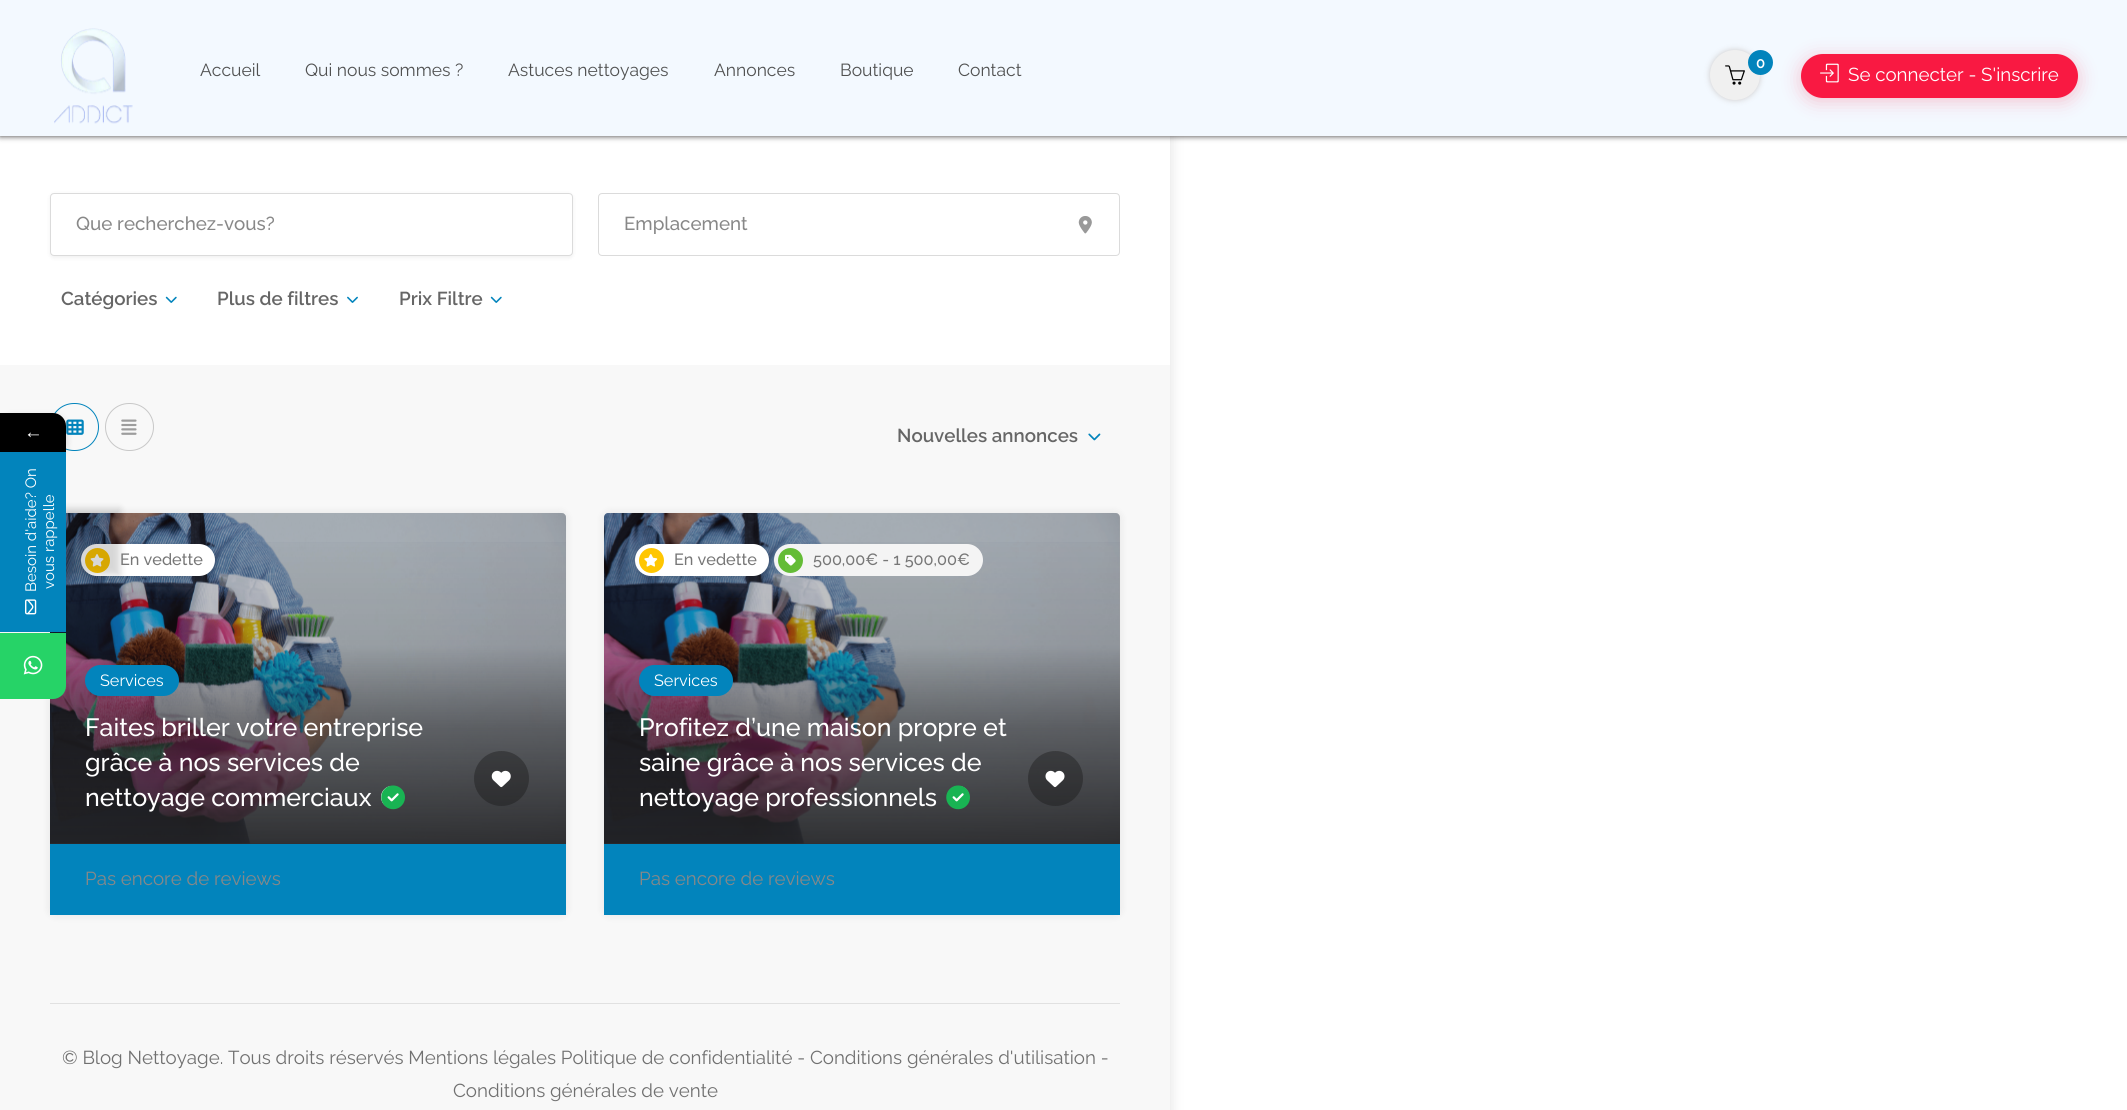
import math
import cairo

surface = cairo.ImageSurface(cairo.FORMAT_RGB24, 2127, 1110)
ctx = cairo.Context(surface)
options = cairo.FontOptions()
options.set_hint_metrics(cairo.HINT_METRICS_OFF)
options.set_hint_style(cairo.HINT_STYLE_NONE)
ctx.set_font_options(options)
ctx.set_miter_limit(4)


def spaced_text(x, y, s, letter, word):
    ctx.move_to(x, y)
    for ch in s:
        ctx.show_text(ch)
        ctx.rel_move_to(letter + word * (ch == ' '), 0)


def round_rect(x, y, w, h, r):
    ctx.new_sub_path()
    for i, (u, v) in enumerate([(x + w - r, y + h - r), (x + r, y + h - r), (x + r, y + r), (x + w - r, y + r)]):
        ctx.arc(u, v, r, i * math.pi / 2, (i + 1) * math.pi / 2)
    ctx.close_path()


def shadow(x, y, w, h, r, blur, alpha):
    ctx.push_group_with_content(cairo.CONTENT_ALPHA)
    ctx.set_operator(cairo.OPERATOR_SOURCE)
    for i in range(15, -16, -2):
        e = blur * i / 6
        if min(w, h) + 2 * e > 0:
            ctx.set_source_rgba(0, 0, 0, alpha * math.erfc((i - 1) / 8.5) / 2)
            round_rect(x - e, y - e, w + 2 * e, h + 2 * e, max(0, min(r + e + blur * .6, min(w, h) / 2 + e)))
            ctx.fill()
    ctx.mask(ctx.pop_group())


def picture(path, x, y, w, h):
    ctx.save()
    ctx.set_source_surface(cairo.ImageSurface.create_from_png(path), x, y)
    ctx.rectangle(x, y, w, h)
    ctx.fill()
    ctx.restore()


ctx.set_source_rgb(1, 1, 1)
ctx.paint()
ctx.set_source_rgb(0, 0, 0)
shadow(0, 0, 1170, 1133, 0, 7.5, 0.12)
ctx.set_source_rgb(1, 1, 1)
ctx.rectangle(0, 136, 1170, 229)
ctx.fill()
ctx.set_source_rgb(0.231, 0.227, 0.227)
shadow(0, 0, 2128, 136, 0, 3, 1)
ctx.set_source_rgb(0.953, 0.973, 1)
ctx.rectangle(0, 0, 2127, 136)
ctx.fill()
picture("img1.png", 54, 28, 79, 96)
ctx.select_font_face("Raleway Thin")
ctx.set_font_size(17.5)
ctx.set_source_rgb(0.314, 0.318, 0.318)
ctx.move_to(200, 76)
ctx.show_text("Accueil")
ctx.move_to(305, 76)
ctx.show_text("Qui nous sommes ?")
ctx.move_to(508, 76)
ctx.show_text("Astuces nettoyages")
ctx.move_to(714, 76)
ctx.show_text("Annonces")
ctx.move_to(840, 76)
ctx.show_text("Boutique")
ctx.move_to(958, 76)
ctx.show_text("Contact")
ctx.set_source_rgb(0.808, 0.796, 0.796)
shadow(1710, 50, 50, 50, 25, 3, 1)
ctx.set_source_rgb(0.941, 0.941, 0.941)
ctx.arc(1735, 75, 25, 0, 2 * math.pi)
ctx.fill()
ctx.set_source_rgb(0.008, 0.518, 0.737)
ctx.arc(1760.5, 62.5, 12.5, 0, 2 * math.pi)
ctx.fill()
ctx.select_font_face("Raleway SemiBold")
ctx.set_font_size(15)
ctx.set_source_rgb(1, 1, 1)
spaced_text(1756, 68, "0", -1, 0)
picture("img2.png", 1725, 65, 20, 20)
ctx.set_source_rgb(0.976, 0.098, 0.259)
shadow(1801, 58, 277, 43, 21.5, 9.5, 0.25)
ctx.set_source_rgb(0.976, 0.098, 0.259)
round_rect(1801, 54, 277, 44, 22)
ctx.fill()
picture("img3.png", 1820, 63, 19, 20)
ctx.select_font_face("Raleway Thin")
ctx.set_font_size(18.75)
ctx.set_source_rgb(1, 1, 1)
ctx.move_to(1848, 81)
ctx.show_text("Se connecter - S'inscrire")
ctx.set_source_rgb(0.969, 0.969, 0.969)
ctx.rectangle(0, 365, 1170, 745)
ctx.fill()
round_rect(50.5, 403.5, 48, 47, 23.5)
ctx.set_source_rgb(0.008, 0.518, 0.737)
ctx.set_line_width(1)
ctx.stroke()
picture("img9.png", 66, 419, 18, 16)
ctx.set_source_rgb(0, 0, 0)
shadow(0, 416, 66, 40, 13, 4, 0.16)
ctx.set_source_rgb(0, 0, 0)
ctx.new_path()
ctx.move_to(0, 413)
ctx.line_to(53, 413)
ctx.curve_to(60, 413, 66, 419, 66, 426)
ctx.line_to(66, 453)
ctx.line_to(0, 453)
ctx.close_path()
ctx.fill()
ctx.select_font_face("Liberation Serif")
ctx.set_source_rgb(1, 1, 1)
ctx.move_to(24, 438)
ctx.show_text("←")
ctx.set_source_rgb(0, 0, 0)
shadow(50, 513, 516, 402, 5, 5, 0.08)
ctx.set_source_rgb(0.8, 0.8, 0.8)
ctx.new_path()
ctx.move_to(55, 513)
ctx.line_to(561, 513)
ctx.curve_to(564, 513, 566, 515, 566, 518)
ctx.line_to(566, 844)
ctx.line_to(50, 844)
ctx.line_to(50, 518)
ctx.curve_to(50, 515, 52, 513, 55, 513)
ctx.close_path()
ctx.fill()
picture("img12.png", 50, 513, 517, 331)
ctx.set_source_rgba(0.137, 0.137, 0.145, 0.2)
ctx.new_path()
ctx.move_to(55, 513)
ctx.line_to(561, 513)
ctx.curve_to(564, 513, 566, 515, 566, 518)
ctx.line_to(566, 844)
ctx.line_to(50, 844)
ctx.line_to(50, 518)
ctx.curve_to(50, 515, 52, 513, 55, 513)
ctx.close_path()
ctx.fill()
gradient = cairo.LinearGradient(308, 844, 308, 513)
gradient.add_color_stop_rgba(0, 0.137, 0.137, 0.145, 0.9)
gradient.add_color_stop_rgba(0.35, 0.137, 0.137, 0.145, 0.55)
gradient.add_color_stop_rgba(0.6, 0.086, 0.086, 0.09, 0.1)
gradient.add_color_stop_rgba(1, 0.086, 0.086, 0.09, 0)
ctx.set_source(gradient)
ctx.rectangle(50, 542, 516, 302)
ctx.fill()
ctx.set_source_rgb(0, 0, 0)
shadow(81, 545, 134, 33, 16.5, 2.5, 0.08)
ctx.set_source_rgb(1, 1, 1)
round_rect(81, 544, 134, 32, 16)
ctx.fill()
ctx.set_source_rgb(1, 0.776, 0.004)
ctx.arc(97.5, 560.5, 12.5, 0, 2 * math.pi)
ctx.fill()
picture("img13.png", 90, 554, 14, 13)
ctx.set_source_rgb(0, 0, 0)
shadow(-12, 509, 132, 66, 0, 4, 0.16)
ctx.set_source_rgb(0.008, 0.518, 0.737)
ctx.rectangle(0, 452, 66, 180)
ctx.fill()
ctx.select_font_face("Raleway Thin")
ctx.set_font_size(15)
ctx.set_source_rgb(1, 1, 1)
ctx.save()
ctx.translate(36, 592)
ctx.rotate(-90 * math.pi / 180)
ctx.move_to(0, 0)
ctx.show_text("Besoin d'aide? On")
ctx.restore()
ctx.save()
ctx.translate(54, 589)
ctx.rotate(-90 * math.pi / 180)
ctx.move_to(0, 0)
ctx.show_text("vous rappelle")
ctx.restore()
picture("img4.png", 25, 599, 12, 16)
ctx.set_source_rgb(0.149, 0.827, 0.404)
ctx.new_path()
ctx.move_to(0, 633)
ctx.line_to(66, 633)
ctx.line_to(66, 686)
ctx.curve_to(66, 693, 60, 699, 53, 699)
ctx.line_to(0, 699)
ctx.close_path()
ctx.fill()
picture("img5.png", 23, 655, 20, 20)
ctx.set_source_rgb(0, 0, 0)
shadow(50, 194, 523, 64, 4, 2, 0.06)
ctx.set_source_rgb(1, 1, 1)
round_rect(50.5, 193.5, 522, 62, 3.5)
ctx.fill_preserve()
ctx.set_source_rgb(0.859, 0.859, 0.859)
ctx.stroke()
ctx.select_font_face("Raleway Medium")
ctx.set_font_size(18.75)
ctx.set_source_rgb(0.533, 0.533, 0.533)
ctx.move_to(76, 230)
ctx.show_text("Que recherchez-vous?")
round_rect(598.5, 193.5, 521, 62, 3.5)
ctx.set_source_rgb(0.859, 0.859, 0.859)
ctx.stroke()
ctx.set_source_rgb(0.533, 0.533, 0.533)
ctx.move_to(624, 230)
ctx.show_text("Emplacement")
picture("img6.png", 1078, 216, 14, 18)
ctx.select_font_face("Raleway SemiBold")
ctx.set_source_rgb(0.4, 0.4, 0.4)
ctx.move_to(61, 305)
ctx.show_text("Catégories")
picture("img7.png", 165, 296, 12, 7)
ctx.move_to(217, 305)
ctx.show_text("Plus de filtres")
picture("img8.png", 347, 296, 11, 7)
ctx.move_to(399, 305)
ctx.show_text("Prix Filtre")
picture("img7.png", 490, 296, 12, 7)
round_rect(105.5, 403.5, 48, 47, 23.5)
ctx.set_source_rgb(0.784, 0.784, 0.784)
ctx.stroke()
picture("img10.png", 121, 419, 16, 16)
ctx.set_source_rgb(0.4, 0.4, 0.4)
ctx.move_to(897, 442)
ctx.show_text("Nouvelles annonces")
picture("img11.png", 1088, 433, 13, 8)
ctx.select_font_face("Raleway Medium")
ctx.set_font_size(16.25)
ctx.set_source_rgb(0.467, 0.467, 0.467)
ctx.move_to(120, 565)
ctx.show_text("En vedette")
ctx.set_source_rgb(0.008, 0.518, 0.737)
round_rect(85, 665, 94, 31, 15.5)
ctx.fill()
ctx.select_font_face("Raleway Thin")
ctx.set_source_rgb(1, 1, 1)
ctx.move_to(100, 686)
ctx.show_text("Services")
ctx.select_font_face("Raleway Medium")
ctx.set_font_size(25)
ctx.move_to(85, 736)
ctx.show_text("Faites briller votre entreprise")
ctx.move_to(85, 771)
ctx.show_text("grâce à nos services de")
ctx.move_to(85, 806)
ctx.show_text("nettoyage commerciaux")
ctx.new_path()
ctx.arc(392, 797, 11, 0, 2 * math.pi)
ctx.fill()
picture("img14.png", 381, 785, 24, 25)
ctx.set_source_rgba(0.094, 0.094, 0.094, 0.4)
ctx.arc(501.5, 778.5, 27.5, 0, 2 * math.pi)
ctx.fill()
picture("img15.png", 491, 770, 20, 18)
ctx.set_source_rgb(0.008, 0.518, 0.737)
ctx.rectangle(50, 844, 516, 71)
ctx.fill()
ctx.select_font_face("Raleway Thin")
ctx.set_font_size(18.75)
ctx.set_source_rgb(0.533, 0.533, 0.533)
ctx.move_to(85, 885)
ctx.show_text("Pas encore de reviews")
ctx.set_source_rgb(0, 0, 0)
shadow(604, 513, 516, 402, 5, 5, 0.08)
ctx.set_source_rgb(0.8, 0.8, 0.8)
ctx.new_path()
ctx.move_to(609, 513)
ctx.line_to(1115, 513)
ctx.curve_to(1118, 513, 1120, 515, 1120, 518)
ctx.line_to(1120, 844)
ctx.line_to(604, 844)
ctx.line_to(604, 518)
ctx.curve_to(604, 515, 606, 513, 609, 513)
ctx.close_path()
ctx.fill()
picture("img16.png", 604, 513, 516, 331)
ctx.set_source_rgba(0.137, 0.137, 0.145, 0.2)
ctx.new_path()
ctx.move_to(609, 513)
ctx.line_to(1115, 513)
ctx.curve_to(1118, 513, 1120, 515, 1120, 518)
ctx.line_to(1120, 844)
ctx.line_to(604, 844)
ctx.line_to(604, 518)
ctx.curve_to(604, 515, 606, 513, 609, 513)
ctx.close_path()
ctx.fill()
gradient = cairo.LinearGradient(862, 844, 862, 513)
gradient.add_color_stop_rgba(0, 0.137, 0.137, 0.145, 0.9)
gradient.add_color_stop_rgba(0.35, 0.137, 0.137, 0.145, 0.55)
gradient.add_color_stop_rgba(0.6, 0.086, 0.086, 0.09, 0.1)
gradient.add_color_stop_rgba(1, 0.086, 0.086, 0.09, 0)
ctx.set_source(gradient)
ctx.rectangle(604, 542, 516, 302)
ctx.fill()
ctx.set_source_rgb(0, 0, 0)
shadow(635, 545, 134, 33, 16.5, 2.5, 0.08)
ctx.set_source_rgb(1, 1, 1)
round_rect(635, 544, 134, 32, 16)
ctx.fill()
ctx.set_source_rgb(1, 0.776, 0.004)
ctx.arc(651.5, 560.5, 12.5, 0, 2 * math.pi)
ctx.fill()
picture("img17.png", 644, 554, 14, 13)
ctx.select_font_face("Raleway Medium")
ctx.set_font_size(16.25)
ctx.set_source_rgb(0.467, 0.467, 0.467)
ctx.move_to(674, 565)
ctx.show_text("En vedette")
ctx.set_source_rgb(0.957, 0.957, 0.957)
round_rect(774, 544, 209, 32, 16)
ctx.fill()
ctx.set_source_rgb(0.392, 0.737, 0.212)
ctx.arc(790.5, 560.5, 12.5, 0, 2 * math.pi)
ctx.fill()
picture("img18.png", 785, 554, 11, 12)
ctx.set_source_rgb(0.467, 0.467, 0.467)
ctx.move_to(813, 565)
ctx.show_text("500,00€ - 1 500,00€")
ctx.set_source_rgb(0.008, 0.518, 0.737)
round_rect(639, 665, 94, 31, 15.5)
ctx.fill()
ctx.select_font_face("Raleway Thin")
ctx.set_source_rgb(1, 1, 1)
ctx.move_to(654, 686)
ctx.show_text("Services")
ctx.select_font_face("Raleway Medium")
ctx.set_font_size(25)
ctx.move_to(639, 736)
ctx.show_text("Profitez d’une maison propre et")
ctx.move_to(639, 771)
ctx.show_text("saine grâce à nos services de")
ctx.move_to(639, 806)
ctx.show_text("nettoyage professionnels")
round_rect(948, 786, 21, 22, 10.5)
ctx.fill()
picture("img19.png", 946, 785, 24, 25)
ctx.set_source_rgba(0.094, 0.094, 0.094, 0.4)
ctx.arc(1055.5, 778.5, 27.5, 0, 2 * math.pi)
ctx.fill()
picture("img20.png", 1045, 770, 20, 18)
ctx.set_source_rgb(0.008, 0.518, 0.737)
ctx.rectangle(604, 844, 516, 71)
ctx.fill()
ctx.select_font_face("Raleway Thin")
ctx.set_font_size(18.75)
ctx.set_source_rgb(0.533, 0.533, 0.533)
ctx.move_to(639, 885)
ctx.show_text("Pas encore de reviews")
ctx.set_source_rgb(0.882, 0.882, 0.882)
ctx.rectangle(50, 1003, 1070, 1)
ctx.fill()
ctx.set_source_rgb(0.439, 0.439, 0.439)
ctx.move_to(62, 1064)
ctx.show_text("© Blog Nettoyage. Tous droits réservés Mentions légales Politique de confidentialité - Conditions générales d'utilisation -")
ctx.move_to(453, 1097)
ctx.show_text("Conditions générales de vente")
surface.write_to_png("page.png")
